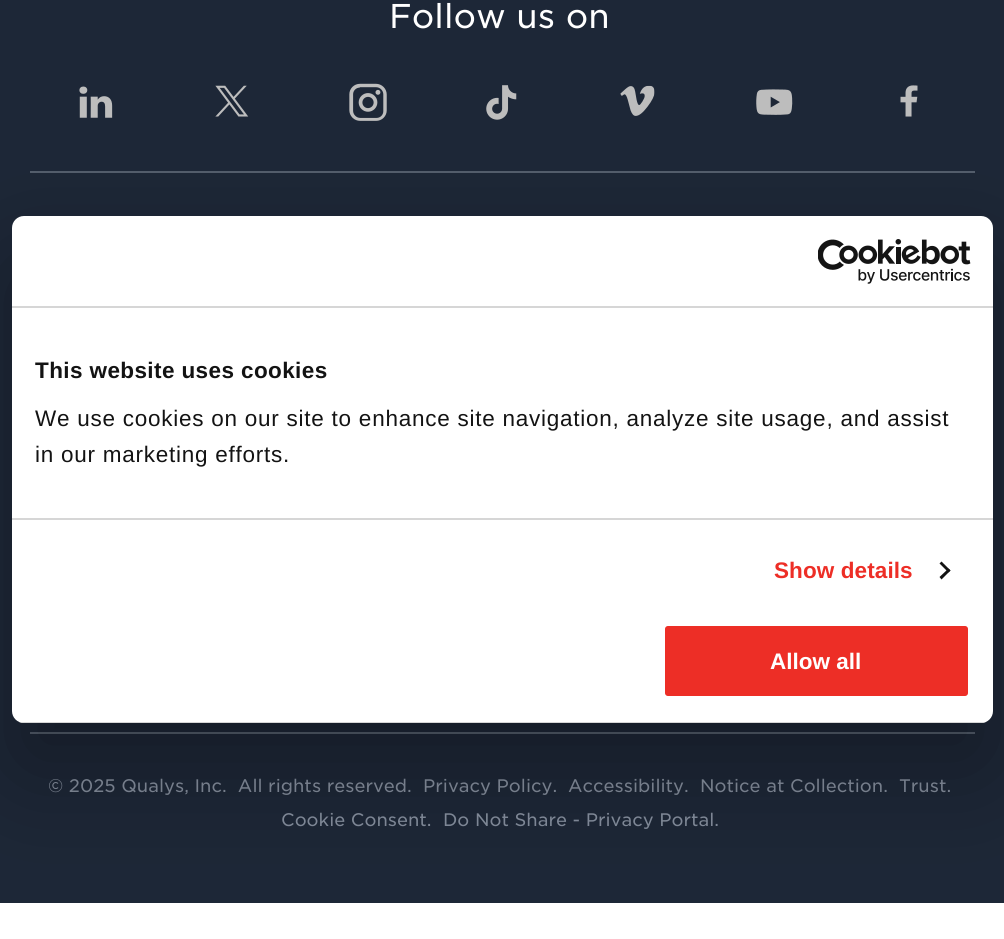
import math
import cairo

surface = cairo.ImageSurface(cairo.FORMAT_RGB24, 1004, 939)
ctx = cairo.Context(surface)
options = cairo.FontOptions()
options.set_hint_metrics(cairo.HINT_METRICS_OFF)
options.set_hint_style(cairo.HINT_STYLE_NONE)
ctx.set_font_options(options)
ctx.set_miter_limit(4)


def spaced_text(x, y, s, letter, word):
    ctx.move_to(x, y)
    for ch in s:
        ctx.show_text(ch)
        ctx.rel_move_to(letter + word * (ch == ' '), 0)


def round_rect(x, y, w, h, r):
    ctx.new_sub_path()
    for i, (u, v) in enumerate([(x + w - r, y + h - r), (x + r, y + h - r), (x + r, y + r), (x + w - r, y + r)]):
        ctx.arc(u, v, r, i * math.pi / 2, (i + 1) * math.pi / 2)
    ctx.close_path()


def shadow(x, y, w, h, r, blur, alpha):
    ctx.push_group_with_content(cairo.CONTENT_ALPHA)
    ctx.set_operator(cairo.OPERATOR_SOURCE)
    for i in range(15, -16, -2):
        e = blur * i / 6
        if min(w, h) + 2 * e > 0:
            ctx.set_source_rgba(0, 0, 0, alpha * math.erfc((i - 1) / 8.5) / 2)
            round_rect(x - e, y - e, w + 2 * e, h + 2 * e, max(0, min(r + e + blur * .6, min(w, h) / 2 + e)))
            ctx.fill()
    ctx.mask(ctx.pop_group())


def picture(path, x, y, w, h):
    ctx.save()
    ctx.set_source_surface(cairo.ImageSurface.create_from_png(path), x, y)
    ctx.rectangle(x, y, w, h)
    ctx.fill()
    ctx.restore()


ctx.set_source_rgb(1, 1, 1)
ctx.paint()
ctx.set_source_rgb(0.114, 0.153, 0.216)
ctx.rectangle(0, 0, 1004, 903)
ctx.fill()
ctx.set_source_rgb(0.329, 0.369, 0.424)
ctx.rectangle(30, 171, 945, 2)
ctx.fill()
ctx.select_font_face("Gotham")
ctx.set_font_size(33)
ctx.set_source_rgb(1, 1, 1)
ctx.move_to(389, 28)
ctx.show_text("Follow us on")
picture("img1.png", 79, 86, 34, 32)
picture("img2.png", 215, 85, 34, 32)
picture("img3.png", 349, 83, 38, 38)
picture("img4.png", 486, 85, 31, 35)
picture("img5.png", 620, 85, 35, 31)
picture("img6.png", 756, 89, 37, 26)
picture("img7.png", 900, 85, 18, 32)
ctx.set_source_rgb(0.329, 0.369, 0.424)
ctx.rectangle(30, 732, 945, 2)
ctx.fill()
ctx.set_font_size(17.5)
ctx.set_source_rgb(0.518, 0.553, 0.612)
ctx.move_to(48, 792)
ctx.show_text("© 2025 Qualys, Inc.  All rights reserved.")
ctx.move_to(423, 792)
ctx.show_text("Privacy Policy.")
ctx.move_to(568, 792)
ctx.show_text("Accessibility.")
ctx.move_to(700, 792)
ctx.show_text("Notice at Collection.")
ctx.move_to(899, 792)
ctx.show_text("Trust.")
ctx.move_to(281, 826)
ctx.show_text("Cookie Consent.")
ctx.move_to(443, 826)
ctx.show_text("Do Not Share - Privacy Portal.")
ctx.set_source_rgb(0, 0, 0)
shadow(12, 264, 981, 507, 12, 51, 0.3)
ctx.set_source_rgb(1, 1, 1)
round_rect(12, 216, 981, 507, 12)
ctx.fill()
ctx.set_source_rgb(0.839, 0.839, 0.839)
ctx.rectangle(12, 306, 981, 2)
ctx.fill()
picture("img8.png", 818, 239, 153, 45)
ctx.rectangle(12, 518, 981, 2)
ctx.fill()
ctx.select_font_face("Liberation Sans", cairo.FONT_SLANT_NORMAL, cairo.FONT_WEIGHT_BOLD)
ctx.set_font_size(22.5)
ctx.set_source_rgb(0.078, 0.078, 0.078)
spaced_text(35, 378, "This website uses cookies", 0.4, 0)
ctx.select_font_face("Liberation Sans")
spaced_text(35, 426, "We use cookies on our site to enhance site navigation, analyze site usage, and assist", 0.75, 0)
spaced_text(35, 462, "in our marketing efforts.", 0.75, 0)
ctx.select_font_face("Liberation Sans", cairo.FONT_SLANT_NORMAL, cairo.FONT_WEIGHT_BOLD)
ctx.set_source_rgb(0.929, 0.18, 0.149)
spaced_text(774, 578, "Show details", 0.1, 0)
ctx.set_source_rgb(0.078, 0.078, 0.078)
ctx.new_path()
ctx.move_to(941.5, 561.5)
ctx.line_to(950.5, 570.5)
ctx.line_to(948.5, 572.5)
ctx.line_to(939.5, 563.5)
ctx.close_path()
ctx.fill()
ctx.new_path()
ctx.move_to(948.5, 568.5)
ctx.line_to(950.5, 570.5)
ctx.line_to(941.5, 579.5)
ctx.line_to(939.5, 577)
ctx.close_path()
ctx.fill()
ctx.save()
round_rect(12, 216, 981, 507, 12)
ctx.clip()
ctx.set_source_rgb(0.839, 0.839, 0.839)
ctx.rectangle(12, 722, 981, 1)
ctx.fill()
ctx.restore()
ctx.set_source_rgb(0.929, 0.18, 0.149)
round_rect(663.5, 624.5, 306, 73, 4.5)
ctx.fill_preserve()
ctx.set_source_rgb(1, 1, 1)
ctx.set_line_width(3)
ctx.stroke()
ctx.move_to(770, 669)
ctx.show_text("Allow all")
surface.write_to_png("page.png")
